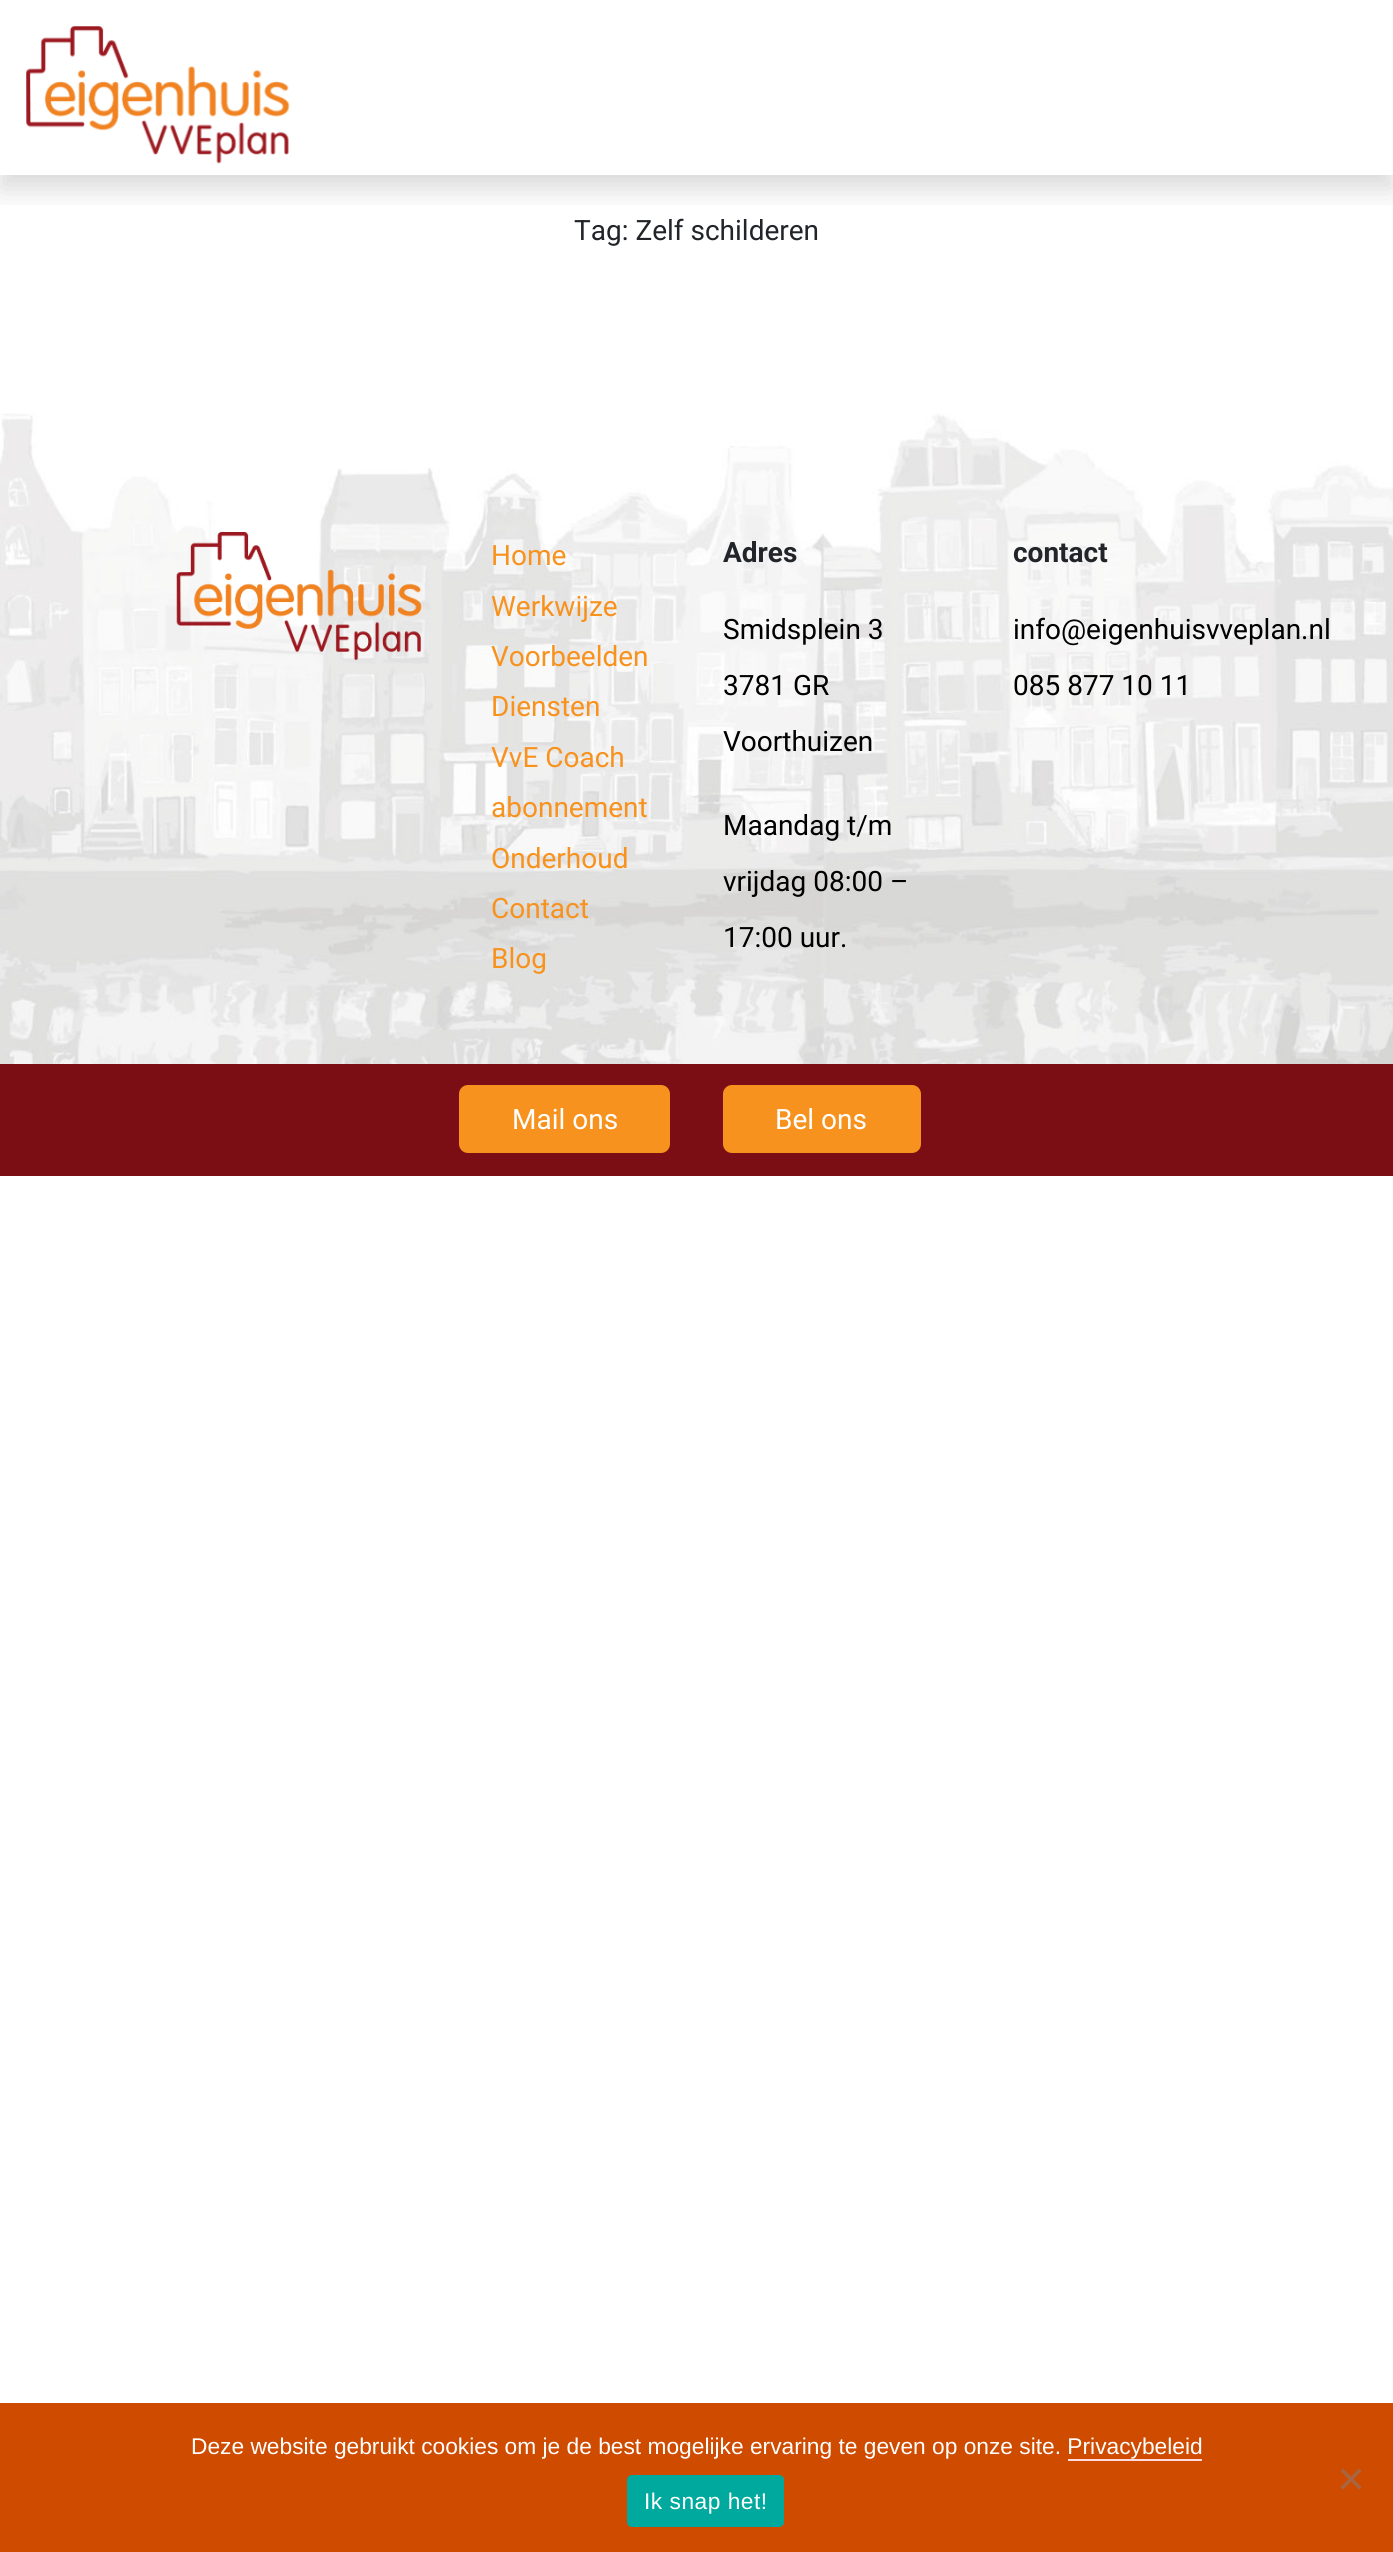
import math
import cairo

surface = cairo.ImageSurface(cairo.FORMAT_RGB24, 1393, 2552)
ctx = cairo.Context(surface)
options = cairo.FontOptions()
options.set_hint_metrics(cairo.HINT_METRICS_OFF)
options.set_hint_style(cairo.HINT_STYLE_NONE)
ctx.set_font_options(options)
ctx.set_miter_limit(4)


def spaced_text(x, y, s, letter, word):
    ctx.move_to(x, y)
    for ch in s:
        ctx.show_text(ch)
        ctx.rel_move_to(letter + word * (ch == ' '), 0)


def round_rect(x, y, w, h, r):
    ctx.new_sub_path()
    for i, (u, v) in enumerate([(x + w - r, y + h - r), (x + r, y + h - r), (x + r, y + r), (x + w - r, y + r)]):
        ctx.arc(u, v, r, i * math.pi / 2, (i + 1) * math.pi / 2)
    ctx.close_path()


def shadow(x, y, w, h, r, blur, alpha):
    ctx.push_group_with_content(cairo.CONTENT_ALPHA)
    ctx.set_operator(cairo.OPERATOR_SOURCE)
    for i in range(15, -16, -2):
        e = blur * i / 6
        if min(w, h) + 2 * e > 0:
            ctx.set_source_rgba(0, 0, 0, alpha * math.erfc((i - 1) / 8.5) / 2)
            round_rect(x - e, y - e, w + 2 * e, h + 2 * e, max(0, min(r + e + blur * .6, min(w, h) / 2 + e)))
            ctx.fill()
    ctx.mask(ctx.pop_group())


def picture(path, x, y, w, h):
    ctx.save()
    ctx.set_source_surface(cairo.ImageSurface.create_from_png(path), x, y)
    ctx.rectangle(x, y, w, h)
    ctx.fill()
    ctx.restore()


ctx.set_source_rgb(1, 1, 1)
ctx.paint()
ctx.save()
ctx.rectangle(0, 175, 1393, 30)
ctx.clip()
ctx.set_source_rgb(0, 0, 0)
shadow(0, 14, 1393, 175, 0, 14, 0.15)
ctx.restore()
picture("img1.png", 26, 26, 264, 138)
ctx.select_font_face("Roboto")
ctx.set_font_size(28)
ctx.set_source_rgb(0.129, 0.145, 0.161)
ctx.move_to(574, 240)
ctx.show_text("Tag: Zelf schilderen")
picture("img2.png", 0, 413, 1393, 651)
picture("img3.png", 176, 532, 246, 128)
ctx.set_source_rgb(0.969, 0.573, 0.118)
ctx.move_to(491, 565)
ctx.show_text("Home")
ctx.move_to(491, 616)
ctx.show_text("Werkwijze")
ctx.move_to(491, 666)
ctx.show_text("Voorbeelden")
ctx.move_to(491, 716)
ctx.show_text("Diensten")
ctx.move_to(491, 767)
ctx.show_text("VvE Coach")
ctx.move_to(491, 817)
ctx.show_text("abonnement")
ctx.move_to(491, 868)
ctx.show_text("Onderhoud")
ctx.move_to(491, 918)
ctx.show_text("Contact")
ctx.move_to(491, 968)
ctx.show_text("Blog")
ctx.select_font_face("Roboto", cairo.FONT_SLANT_NORMAL, cairo.FONT_WEIGHT_BOLD)
ctx.set_source_rgb(0.129, 0.145, 0.161)
ctx.move_to(723, 562)
ctx.show_text("Adres")
ctx.select_font_face("Roboto")
ctx.set_source_rgb(0, 0, 0)
ctx.move_to(723, 639)
ctx.show_text("Smidsplein 3")
ctx.move_to(723, 695)
ctx.show_text("3781 GR")
ctx.move_to(723, 751)
ctx.show_text("Voorthuizen")
ctx.move_to(723, 835)
ctx.show_text("Maandag t/m")
ctx.move_to(723, 891)
ctx.show_text("vrijdag 08:00 –")
ctx.move_to(723, 947)
ctx.show_text("17:00 uur.")
ctx.select_font_face("Roboto", cairo.FONT_SLANT_NORMAL, cairo.FONT_WEIGHT_BOLD)
ctx.set_source_rgb(0.129, 0.145, 0.161)
ctx.move_to(1013, 562)
ctx.show_text("contact")
ctx.select_font_face("Roboto")
ctx.set_source_rgb(0, 0, 0)
ctx.move_to(1013, 639)
ctx.show_text("info@eigenhuisvveplan.nl")
ctx.move_to(1013, 695)
ctx.show_text("085 877 10 11")
ctx.set_source_rgb(0.478, 0.055, 0.082)
ctx.rectangle(0, 1064, 1393, 112)
ctx.fill()
ctx.set_source_rgb(0.969, 0.573, 0.118)
round_rect(459, 1085, 211, 68, 9)
ctx.fill()
ctx.set_source_rgb(1, 1, 1)
ctx.move_to(512, 1129)
ctx.show_text("Mail ons")
ctx.set_source_rgb(0.969, 0.573, 0.118)
round_rect(723, 1085, 198, 68, 9)
ctx.fill()
ctx.set_source_rgb(1, 1, 1)
ctx.move_to(775, 1129)
ctx.show_text("Bel ons")
ctx.set_source_rgb(0.808, 0.294, 0)
ctx.rectangle(0, 2403, 1393, 149)
ctx.fill()
ctx.select_font_face("Liberation Sans")
ctx.set_font_size(22.75)
ctx.set_source_rgb(1, 1, 1)
ctx.move_to(191, 2454)
ctx.show_text("Deze website gebruikt cookies om je de best mogelijke ervaring te geven op onze site. Privacybeleid")
ctx.set_source_rgb(1, 0.867, 0.867)
ctx.rectangle(1068, 2459, 134, 2)
ctx.fill()
ctx.set_source_rgb(0.655, 0.4, 0.251)
ctx.new_path()
ctx.move_to(1359, 2468.5)
ctx.line_to(1361.5, 2471)
ctx.line_to(1343, 2489.5)
ctx.line_to(1340.5, 2487)
ctx.close_path()
ctx.fill()
ctx.new_path()
ctx.move_to(1340.5, 2471)
ctx.line_to(1343, 2468.5)
ctx.line_to(1361.5, 2487)
ctx.line_to(1359, 2489.5)
ctx.close_path()
ctx.fill()
ctx.set_source_rgb(0, 0.663, 0.616)
round_rect(627, 2475, 157, 52, 5)
ctx.fill()
ctx.set_source_rgb(1, 1, 1)
spaced_text(644, 2509, "Ik snap het!", 0.5, 0)
surface.write_to_png("page.png")
